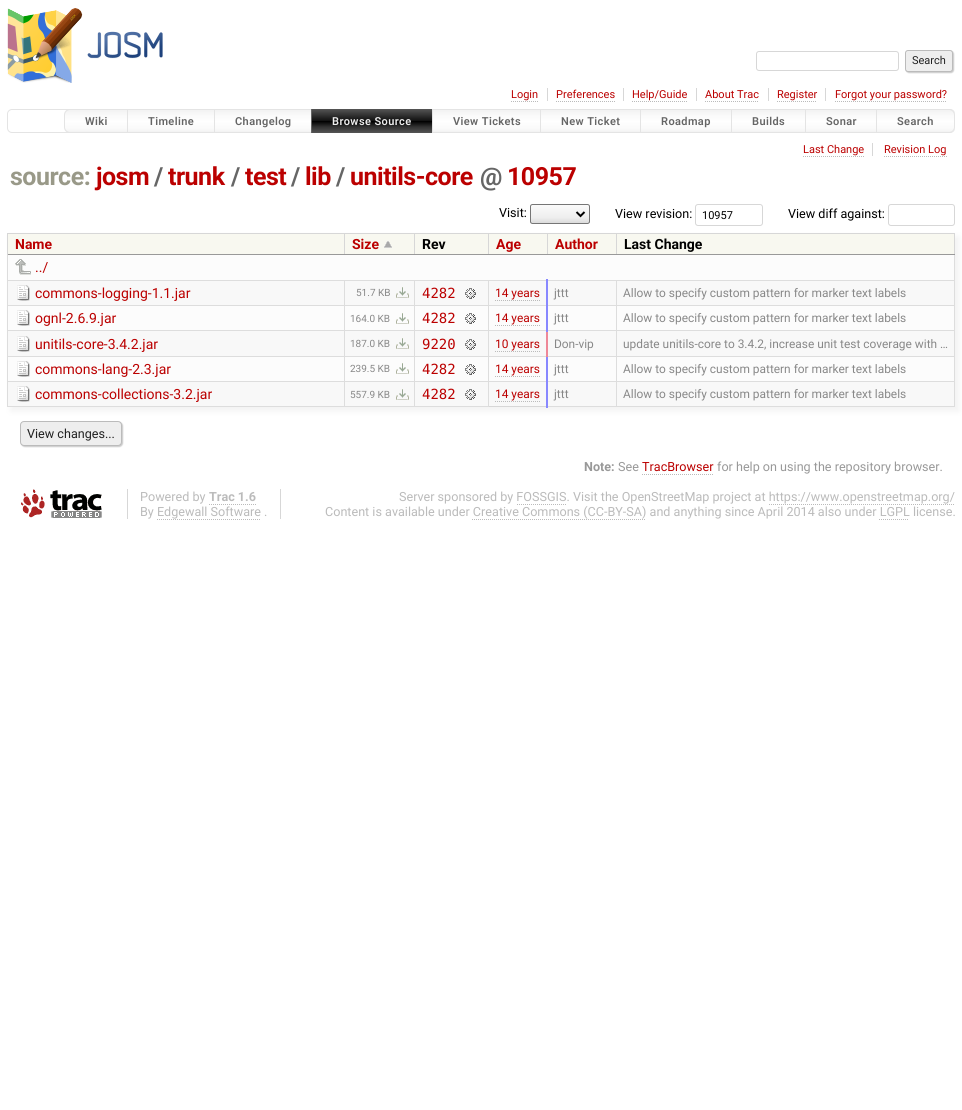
import math
import cairo

surface = cairo.ImageSurface(cairo.FORMAT_RGB24, 962, 1110)
ctx = cairo.Context(surface)
options = cairo.FontOptions()
options.set_hint_metrics(cairo.HINT_METRICS_OFF)
options.set_hint_style(cairo.HINT_STYLE_NONE)
ctx.set_font_options(options)
ctx.set_miter_limit(4)


def spaced_text(x, y, s, letter, word):
    ctx.move_to(x, y)
    for ch in s:
        ctx.show_text(ch)
        ctx.rel_move_to(letter + word * (ch == ' '), 0)


def round_rect(x, y, w, h, r):
    ctx.new_sub_path()
    for i, (u, v) in enumerate([(x + w - r, y + h - r), (x + r, y + h - r), (x + r, y + r), (x + w - r, y + r)]):
        ctx.arc(u, v, r, i * math.pi / 2, (i + 1) * math.pi / 2)
    ctx.close_path()


def shadow(x, y, w, h, r, blur, alpha):
    ctx.push_group_with_content(cairo.CONTENT_ALPHA)
    ctx.set_operator(cairo.OPERATOR_SOURCE)
    for i in range(15, -16, -2):
        e = blur * i / 6
        if min(w, h) + 2 * e > 0:
            ctx.set_source_rgba(0, 0, 0, alpha * math.erfc((i - 1) / 8.5) / 2)
            round_rect(x - e, y - e, w + 2 * e, h + 2 * e, max(0, min(r + e + blur * .6, min(w, h) / 2 + e)))
            ctx.fill()
    ctx.mask(ctx.pop_group())


def picture(path, x, y, w, h):
    ctx.save()
    ctx.set_source_surface(cairo.ImageSurface.create_from_png(path), x, y)
    ctx.rectangle(x, y, w, h)
    ctx.fill()
    ctx.restore()


ctx.set_source_rgb(1, 1, 1)
ctx.paint()
picture("img1.png", 7, 8, 156, 75)
round_rect(756.5, 51.5, 142, 19, 2.5)
ctx.set_source_rgb(0.843, 0.843, 0.843)
ctx.set_line_width(1)
ctx.stroke()
ctx.set_source_rgb(0.8, 0.8, 0.8)
shadow(906, 51, 48, 22, 3, 0.5, 1)
ctx.set_source_rgb(0.933, 0.933, 0.933)
round_rect(905.5, 50.5, 47, 21, 2.5)
ctx.fill_preserve()
ctx.set_source_rgb(0.733, 0.733, 0.733)
ctx.stroke()
ctx.select_font_face("Roboto")
ctx.set_font_size(11)
ctx.set_source_rgb(0.133, 0.133, 0.133)
ctx.move_to(912, 64)
ctx.show_text("Search")
ctx.set_source_rgb(0.843, 0.843, 0.843)
ctx.rectangle(547, 88, 1, 13)
ctx.fill()
ctx.set_source_rgb(0.733, 0, 0)
ctx.move_to(511, 98)
ctx.show_text("Login")
ctx.new_path()
ctx.move_to(511, 101.5)
ctx.line_to(538, 101.5)
ctx.set_source_rgb(0.733, 0.733, 0.733)
ctx.set_dash([1, 1])
ctx.stroke()
ctx.set_source_rgb(0.843, 0.843, 0.843)
ctx.rectangle(623, 88, 1, 13)
ctx.fill()
ctx.set_source_rgb(0.733, 0, 0)
ctx.move_to(556, 98)
ctx.show_text("Preferences")
ctx.new_path()
ctx.move_to(556, 101.5)
ctx.line_to(615, 101.5)
ctx.set_source_rgb(0.733, 0.733, 0.733)
ctx.stroke()
ctx.set_source_rgb(0.843, 0.843, 0.843)
ctx.rectangle(696, 88, 1, 13)
ctx.fill()
ctx.set_source_rgb(0.733, 0, 0)
ctx.move_to(632, 98)
ctx.show_text("Help/Guide")
ctx.new_path()
ctx.move_to(632, 101.5)
ctx.line_to(688, 101.5)
ctx.set_source_rgb(0.733, 0.733, 0.733)
ctx.stroke()
ctx.set_source_rgb(0.843, 0.843, 0.843)
ctx.rectangle(768, 88, 1, 13)
ctx.fill()
ctx.set_source_rgb(0.733, 0, 0)
ctx.move_to(705, 98)
ctx.show_text("About Trac")
ctx.new_path()
ctx.move_to(705, 101.5)
ctx.line_to(759, 101.5)
ctx.set_source_rgb(0.733, 0.733, 0.733)
ctx.stroke()
ctx.set_source_rgb(0.843, 0.843, 0.843)
ctx.rectangle(825, 88, 1, 13)
ctx.fill()
ctx.set_source_rgb(0.733, 0, 0)
ctx.move_to(777, 98)
ctx.show_text("Register")
ctx.new_path()
ctx.move_to(777, 101.5)
ctx.line_to(817, 101.5)
ctx.set_source_rgb(0.733, 0.733, 0.733)
ctx.stroke()
ctx.set_source_rgb(0.733, 0, 0)
ctx.move_to(835, 98)
ctx.show_text("Forgot your password?")
ctx.new_path()
ctx.move_to(835, 101.5)
ctx.line_to(947, 101.5)
ctx.set_source_rgb(0.733, 0.733, 0.733)
ctx.stroke()
round_rect(7.5, 109.5, 947, 23, 4.5)
ctx.set_source_rgb(0.894, 0.894, 0.894)
ctx.set_dash([])
ctx.stroke()
ctx.save()
ctx.new_path()
ctx.move_to(70, 109)
ctx.line_to(128, 109)
ctx.line_to(128, 133)
ctx.line_to(70, 133)
ctx.curve_to(66.5, 133, 64, 130.5, 64, 127)
ctx.line_to(64, 115)
ctx.curve_to(64, 111.5, 66.5, 109, 70, 109)
ctx.close_path()
ctx.clip()
gradient = cairo.LinearGradient(96, 110, 96, 132)
gradient.add_color_stop_rgba(0, 0.949, 0.949, 0.949, 1)
gradient.add_color_stop_rgba(0.25, 0.98, 0.98, 0.98, 1)
gradient.add_color_stop_rgba(0.49, 0.996, 0.996, 0.996, 1)
gradient.add_color_stop_rgba(0.51, 1, 1, 1, 1)
gradient.add_color_stop_rgba(0.85, 0.98, 0.98, 0.98, 1)
gradient.add_color_stop_rgba(1, 0.949, 0.949, 0.949, 1)
ctx.set_source(gradient)
ctx.rectangle(64, 110, 63, 22)
ctx.fill()
ctx.restore()
ctx.new_path()
ctx.move_to(70, 109.5)
ctx.line_to(127.5, 109.5)
ctx.line_to(127.5, 132.5)
ctx.line_to(70, 132.5)
ctx.curve_to(67, 132.5, 64.5, 130, 64.5, 127)
ctx.line_to(64.5, 115)
ctx.curve_to(64.5, 112, 67, 109.5, 70, 109.5)
ctx.close_path()
ctx.stroke()
ctx.select_font_face("Roboto SemiBold")
ctx.set_source_rgb(0.4, 0.4, 0.4)
spaced_text(85, 125, "Wiki", 0.4, 0)
gradient = cairo.LinearGradient(171, 110, 171, 132)
gradient.add_color_stop_rgba(0, 0.949, 0.949, 0.949, 1)
gradient.add_color_stop_rgba(0.25, 0.98, 0.98, 0.98, 1)
gradient.add_color_stop_rgba(0.49, 0.996, 0.996, 0.996, 1)
gradient.add_color_stop_rgba(0.51, 1, 1, 1, 1)
gradient.add_color_stop_rgba(0.85, 0.98, 0.98, 0.98, 1)
gradient.add_color_stop_rgba(1, 0.949, 0.949, 0.949, 1)
ctx.set_source(gradient)
ctx.rectangle(128, 110, 86, 22)
ctx.fill()
ctx.rectangle(127.5, 109.5, 87, 23)
ctx.set_source_rgb(0.894, 0.894, 0.894)
ctx.stroke()
ctx.set_source_rgb(0.4, 0.4, 0.4)
spaced_text(148, 125, "Timeline", 0.4, 0)
gradient = cairo.LinearGradient(264, 110, 264, 132)
gradient.add_color_stop_rgba(0, 0.949, 0.949, 0.949, 1)
gradient.add_color_stop_rgba(0.25, 0.98, 0.98, 0.98, 1)
gradient.add_color_stop_rgba(0.49, 0.996, 0.996, 0.996, 1)
gradient.add_color_stop_rgba(0.51, 1, 1, 1, 1)
gradient.add_color_stop_rgba(0.85, 0.98, 0.98, 0.98, 1)
gradient.add_color_stop_rgba(1, 0.949, 0.949, 0.949, 1)
ctx.set_source(gradient)
ctx.rectangle(215, 110, 96, 22)
ctx.fill()
ctx.rectangle(214.5, 109.5, 98, 23)
ctx.set_source_rgb(0.894, 0.894, 0.894)
ctx.stroke()
ctx.set_source_rgb(0.4, 0.4, 0.4)
spaced_text(235, 125, "Changelog", 0.4, 0)
ctx.rectangle(311.5, 109.5, 121, 23)
ctx.stroke()
gradient = cairo.LinearGradient(372, 109, 372, 133)
gradient.add_color_stop_rgba(0, 0.333, 0.333, 0.333, 1)
gradient.add_color_stop_rgba(0.25, 0.2, 0.2, 0.2, 1)
gradient.add_color_stop_rgba(0.49, 0.067, 0.067, 0.067, 1)
gradient.add_color_stop_rgba(0.51, 0, 0, 0, 1)
gradient.add_color_stop_rgba(0.75, 0.2, 0.2, 0.2, 1)
gradient.add_color_stop_rgba(1, 0.333, 0.333, 0.333, 1)
ctx.set_source(gradient)
ctx.rectangle(312, 109, 120, 24)
ctx.fill()
ctx.set_source_rgb(0.933, 0.933, 0.933)
spaced_text(332, 125, "Browse Source", 0.4, 0)
gradient = cairo.LinearGradient(487, 110, 487, 132)
gradient.add_color_stop_rgba(0, 0.949, 0.949, 0.949, 1)
gradient.add_color_stop_rgba(0.25, 0.98, 0.98, 0.98, 1)
gradient.add_color_stop_rgba(0.49, 0.996, 0.996, 0.996, 1)
gradient.add_color_stop_rgba(0.51, 1, 1, 1, 1)
gradient.add_color_stop_rgba(0.85, 0.98, 0.98, 0.98, 1)
gradient.add_color_stop_rgba(1, 0.949, 0.949, 0.949, 1)
ctx.set_source(gradient)
ctx.rectangle(433, 110, 107, 22)
ctx.fill()
ctx.rectangle(432.5, 109.5, 108, 23)
ctx.set_source_rgb(0.894, 0.894, 0.894)
ctx.stroke()
ctx.set_source_rgb(0.4, 0.4, 0.4)
spaced_text(453, 125, "View Tickets", 0.4, 0)
gradient = cairo.LinearGradient(591, 110, 591, 132)
gradient.add_color_stop_rgba(0, 0.949, 0.949, 0.949, 1)
gradient.add_color_stop_rgba(0.25, 0.98, 0.98, 0.98, 1)
gradient.add_color_stop_rgba(0.49, 0.996, 0.996, 0.996, 1)
gradient.add_color_stop_rgba(0.51, 1, 1, 1, 1)
gradient.add_color_stop_rgba(0.85, 0.98, 0.98, 0.98, 1)
gradient.add_color_stop_rgba(1, 0.949, 0.949, 0.949, 1)
ctx.set_source(gradient)
ctx.rectangle(541, 110, 99, 22)
ctx.fill()
ctx.rectangle(540.5, 109.5, 100, 23)
ctx.set_source_rgb(0.894, 0.894, 0.894)
ctx.stroke()
ctx.set_source_rgb(0.4, 0.4, 0.4)
spaced_text(561, 125, "New Ticket", 0.4, 0)
gradient = cairo.LinearGradient(686, 110, 686, 132)
gradient.add_color_stop_rgba(0, 0.949, 0.949, 0.949, 1)
gradient.add_color_stop_rgba(0.25, 0.98, 0.98, 0.98, 1)
gradient.add_color_stop_rgba(0.49, 0.996, 0.996, 0.996, 1)
gradient.add_color_stop_rgba(0.51, 1, 1, 1, 1)
gradient.add_color_stop_rgba(0.85, 0.98, 0.98, 0.98, 1)
gradient.add_color_stop_rgba(1, 0.949, 0.949, 0.949, 1)
ctx.set_source(gradient)
ctx.rectangle(641, 110, 90, 22)
ctx.fill()
ctx.rectangle(640.5, 109.5, 91, 23)
ctx.set_source_rgb(0.894, 0.894, 0.894)
ctx.stroke()
ctx.set_source_rgb(0.4, 0.4, 0.4)
spaced_text(661, 125, "Roadmap", 0.4, 0)
gradient = cairo.LinearGradient(769, 110, 769, 132)
gradient.add_color_stop_rgba(0, 0.949, 0.949, 0.949, 1)
gradient.add_color_stop_rgba(0.25, 0.98, 0.98, 0.98, 1)
gradient.add_color_stop_rgba(0.49, 0.996, 0.996, 0.996, 1)
gradient.add_color_stop_rgba(0.51, 1, 1, 1, 1)
gradient.add_color_stop_rgba(0.85, 0.98, 0.98, 0.98, 1)
gradient.add_color_stop_rgba(1, 0.949, 0.949, 0.949, 1)
ctx.set_source(gradient)
ctx.rectangle(732, 110, 73, 22)
ctx.fill()
ctx.rectangle(731.5, 109.5, 74, 23)
ctx.set_source_rgb(0.894, 0.894, 0.894)
ctx.stroke()
ctx.set_source_rgb(0.4, 0.4, 0.4)
spaced_text(752, 125, "Builds", 0.4, 0)
gradient = cairo.LinearGradient(841, 110, 841, 132)
gradient.add_color_stop_rgba(0, 0.949, 0.949, 0.949, 1)
gradient.add_color_stop_rgba(0.25, 0.98, 0.98, 0.98, 1)
gradient.add_color_stop_rgba(0.49, 0.996, 0.996, 0.996, 1)
gradient.add_color_stop_rgba(0.51, 1, 1, 1, 1)
gradient.add_color_stop_rgba(0.85, 0.98, 0.98, 0.98, 1)
gradient.add_color_stop_rgba(1, 0.949, 0.949, 0.949, 1)
ctx.set_source(gradient)
ctx.rectangle(806, 110, 70, 22)
ctx.fill()
ctx.rectangle(805.5, 109.5, 71, 23)
ctx.set_source_rgb(0.894, 0.894, 0.894)
ctx.stroke()
ctx.set_source_rgb(0.4, 0.4, 0.4)
spaced_text(826, 125, "Sonar", 0.4, 0)
ctx.save()
ctx.new_path()
ctx.move_to(876, 109)
ctx.line_to(949, 109)
ctx.curve_to(952.5, 109, 955, 111.5, 955, 115)
ctx.line_to(955, 127)
ctx.curve_to(955, 130.5, 952.5, 133, 949, 133)
ctx.line_to(876, 133)
ctx.close_path()
ctx.clip()
gradient = cairo.LinearGradient(916, 110, 916, 132)
gradient.add_color_stop_rgba(0, 0.949, 0.949, 0.949, 1)
gradient.add_color_stop_rgba(0.25, 0.98, 0.98, 0.98, 1)
gradient.add_color_stop_rgba(0.49, 0.996, 0.996, 0.996, 1)
gradient.add_color_stop_rgba(0.51, 1, 1, 1, 1)
gradient.add_color_stop_rgba(0.85, 0.98, 0.98, 0.98, 1)
gradient.add_color_stop_rgba(1, 0.949, 0.949, 0.949, 1)
ctx.set_source(gradient)
ctx.rectangle(877, 110, 78, 22)
ctx.fill()
ctx.restore()
ctx.new_path()
ctx.move_to(876.5, 109.5)
ctx.line_to(949, 109.5)
ctx.curve_to(952, 109.5, 954.5, 112, 954.5, 115)
ctx.line_to(954.5, 127)
ctx.curve_to(954.5, 130, 952, 132.5, 949, 132.5)
ctx.line_to(876.5, 132.5)
ctx.close_path()
ctx.set_source_rgb(0.894, 0.894, 0.894)
ctx.stroke()
ctx.set_source_rgb(0.4, 0.4, 0.4)
spaced_text(897, 125, "Search", 0.4, 0)
ctx.set_source_rgb(0.843, 0.843, 0.843)
ctx.rectangle(872, 143, 1, 13)
ctx.fill()
ctx.select_font_face("Roboto")
ctx.set_source_rgb(0.733, 0, 0)
ctx.move_to(803, 153)
ctx.show_text("Last Change")
ctx.new_path()
ctx.move_to(803, 156.5)
ctx.line_to(864, 156.5)
ctx.set_source_rgb(0.733, 0.733, 0.733)
ctx.set_dash([1, 1])
ctx.stroke()
ctx.set_source_rgb(0.733, 0, 0)
ctx.move_to(884, 153)
ctx.show_text("Revision Log")
ctx.new_path()
ctx.move_to(884, 156.5)
ctx.line_to(947, 156.5)
ctx.set_source_rgb(0.733, 0.733, 0.733)
ctx.stroke()
ctx.select_font_face("Roboto", cairo.FONT_SLANT_NORMAL, cairo.FONT_WEIGHT_BOLD)
ctx.set_font_size(25)
ctx.set_source_rgb(0.6, 0.6, 0.533)
spaced_text(10, 185, "source:", -0.5, 0)
ctx.set_source_rgb(0.733, 0, 0)
spaced_text(96, 185, "josm", -0.5, 0)
ctx.set_source_rgb(0.4, 0.4, 0.4)
spaced_text(154, 185, "/", -0.5, 0)
ctx.set_source_rgb(0.733, 0, 0)
spaced_text(168, 185, "trunk", -0.5, 0)
ctx.set_source_rgb(0.4, 0.4, 0.4)
spaced_text(231, 185, "/", -0.5, 0)
ctx.set_source_rgb(0.733, 0, 0)
spaced_text(245, 185, "test", -0.5, 0)
ctx.set_source_rgb(0.4, 0.4, 0.4)
spaced_text(291, 185, "/", -0.5, 0)
ctx.set_source_rgb(0.733, 0, 0)
spaced_text(305, 185, "lib", -0.5, 0)
ctx.set_source_rgb(0.4, 0.4, 0.4)
spaced_text(336, 185, "/", -0.5, 0)
ctx.set_source_rgb(0.733, 0, 0)
spaced_text(350, 185, "unitils-core", -0.5, 0)
ctx.set_source_rgb(0.4, 0.4, 0.4)
spaced_text(480, 185, "@", -0.5, 0)
ctx.set_source_rgb(0.733, 0, 0)
spaced_text(507, 185, "10957", -0.5, 0)
ctx.select_font_face("Roboto")
ctx.set_font_size(12.6)
ctx.set_source_rgb(0, 0, 0)
ctx.move_to(499, 217)
ctx.show_text("Visit:")
ctx.save()
round_rect(530, 204, 60, 20, 2.5)
ctx.clip()
gradient = cairo.LinearGradient(560, 223, 560, 205)
gradient.add_color_stop_rgba(0, 0.859, 0.859, 0.859, 1)
gradient.add_color_stop_rgba(0.3, 0.933, 0.933, 0.933, 1)
gradient.add_color_stop_rgba(1, 0.984, 0.984, 0.984, 1)
ctx.set_source(gradient)
ctx.rectangle(530, 205, 60, 18)
ctx.fill()
ctx.restore()
round_rect(530.5, 204.5, 59, 19, 2)
ctx.set_source_rgb(0.463, 0.463, 0.463)
ctx.set_dash([])
ctx.stroke()
ctx.new_path()
ctx.move_to(576.5, 212)
ctx.line_to(580.5, 216)
ctx.line_to(584.5, 212)
ctx.set_source_rgb(0, 0, 0)
ctx.set_line_width(2)
ctx.stroke()
ctx.move_to(615, 218)
ctx.show_text("View revision:")
round_rect(695.5, 204.5, 67, 21, 2.5)
ctx.set_source_rgb(0.843, 0.843, 0.843)
ctx.set_line_width(1)
ctx.stroke()
ctx.set_font_size(11)
ctx.set_source_rgb(0, 0, 0)
ctx.move_to(702, 219)
ctx.show_text("10957")
ctx.set_font_size(12.6)
ctx.move_to(788, 218)
ctx.show_text("View diff against:")
round_rect(888.5, 204.5, 66, 21, 2.5)
ctx.set_source_rgb(0.843, 0.843, 0.843)
ctx.stroke()
ctx.set_source_rgb(0.949, 0.949, 0.949)
shadow(11, 237, 948, 174, 0, 3, 1)
ctx.set_source_rgb(0.843, 0.843, 0.843)
ctx.rectangle(489, 406, 57, 1)
ctx.fill()
ctx.set_source_rgb(0.969, 0.969, 0.941)
ctx.rectangle(8, 234, 946, 20)
ctx.fill()
ctx.set_source_rgb(0.843, 0.843, 0.843)
ctx.rectangle(616, 233, 339, 1)
ctx.fill()
ctx.set_source_rgb(0.867, 0.867, 0.867)
ctx.rectangle(7, 280, 948, 1)
ctx.fill()
ctx.rectangle(7, 305, 948, 1)
ctx.fill()
ctx.rectangle(7, 330, 948, 1)
ctx.fill()
ctx.rectangle(7, 356, 948, 1)
ctx.fill()
ctx.rectangle(7, 381, 948, 1)
ctx.fill()
ctx.rectangle(954, 254, 1, 153)
ctx.fill()
ctx.set_source_rgb(0.843, 0.843, 0.843)
ctx.rectangle(954, 233, 1, 22)
ctx.fill()
ctx.set_source_rgb(0.6, 0.6, 0.6)
ctx.rectangle(616, 254, 339, 1)
ctx.fill()
ctx.set_source_rgb(0.843, 0.843, 0.843)
ctx.rectangle(616, 233, 1, 22)
ctx.fill()
ctx.rectangle(547, 233, 70, 1)
ctx.fill()
ctx.set_source_rgb(0.6, 0.6, 0.6)
ctx.rectangle(547, 254, 70, 1)
ctx.fill()
ctx.set_source_rgb(0.843, 0.843, 0.843)
ctx.rectangle(547, 233, 1, 22)
ctx.fill()
ctx.rectangle(488, 233, 60, 1)
ctx.fill()
ctx.set_source_rgb(0.6, 0.6, 0.6)
ctx.rectangle(488, 254, 60, 1)
ctx.fill()
ctx.set_source_rgb(0.843, 0.843, 0.843)
ctx.rectangle(488, 233, 1, 22)
ctx.fill()
ctx.rectangle(414, 233, 75, 1)
ctx.fill()
ctx.set_source_rgb(0.6, 0.6, 0.6)
ctx.rectangle(414, 254, 75, 1)
ctx.fill()
ctx.set_source_rgb(0.843, 0.843, 0.843)
ctx.rectangle(414, 233, 1, 22)
ctx.fill()
ctx.rectangle(344, 233, 71, 1)
ctx.fill()
ctx.set_source_rgb(0.6, 0.6, 0.6)
ctx.rectangle(344, 254, 71, 1)
ctx.fill()
ctx.set_source_rgb(0.843, 0.843, 0.843)
ctx.rectangle(344, 233, 1, 22)
ctx.fill()
ctx.rectangle(7, 233, 338, 1)
ctx.fill()
ctx.set_source_rgb(0.969, 0.969, 0.969)
ctx.rectangle(8, 281, 946, 24)
ctx.fill()
ctx.set_source_rgb(0.988, 0.988, 0.988)
ctx.rectangle(10, 306, 944, 24)
ctx.fill()
ctx.set_source_rgb(0.969, 0.969, 0.969)
ctx.rectangle(8, 331, 946, 25)
ctx.fill()
ctx.set_source_rgb(0.988, 0.988, 0.988)
ctx.rectangle(10, 357, 944, 24)
ctx.fill()
ctx.set_source_rgb(0.969, 0.969, 0.969)
ctx.rectangle(8, 382, 946, 24)
ctx.fill()
ctx.set_source_rgb(0.867, 0.867, 0.867)
ctx.rectangle(488, 280, 1, 127)
ctx.fill()
ctx.rectangle(414, 406, 75, 1)
ctx.fill()
ctx.rectangle(414, 280, 1, 127)
ctx.fill()
ctx.rectangle(344, 406, 71, 1)
ctx.fill()
ctx.rectangle(344, 280, 1, 127)
ctx.fill()
ctx.rectangle(7, 406, 338, 1)
ctx.fill()
ctx.rectangle(7, 254, 1, 153)
ctx.fill()
ctx.set_source_rgb(0.6, 0.6, 0.6)
ctx.rectangle(7, 254, 338, 1)
ctx.fill()
ctx.set_source_rgb(0.843, 0.843, 0.843)
ctx.rectangle(7, 233, 1, 22)
ctx.fill()
ctx.select_font_face("Roboto", cairo.FONT_SLANT_NORMAL, cairo.FONT_WEIGHT_BOLD)
ctx.set_font_size(14)
ctx.set_source_rgb(0.733, 0, 0)
ctx.move_to(15, 249)
ctx.show_text("Name")
ctx.move_to(352, 249)
ctx.show_text("Size")
picture("img2.png", 384, 241, 8, 7)
ctx.set_source_rgb(0, 0, 0)
ctx.move_to(422, 249)
ctx.show_text("Rev")
ctx.set_source_rgb(0.733, 0, 0)
ctx.move_to(496, 249)
ctx.show_text("Age")
ctx.move_to(555, 249)
ctx.show_text("Author")
ctx.set_source_rgb(0, 0, 0)
ctx.move_to(624, 249)
ctx.show_text("Last Change")
ctx.set_source_rgb(0.988, 0.988, 0.988)
ctx.rectangle(10, 255, 944, 25)
ctx.fill()
picture("img3.png", 15, 259, 16, 16)
ctx.select_font_face("Roboto")
ctx.set_source_rgb(0.733, 0, 0)
ctx.move_to(35, 272)
ctx.show_text("../")
picture("img4.png", 17, 285, 13, 16)
ctx.move_to(35, 298)
ctx.show_text("commons-logging-1.1.jar")
ctx.set_font_size(10)
ctx.set_source_rgb(0.533, 0.533, 0.533)
ctx.move_to(356, 296)
ctx.show_text("51.7 KB")
picture("img5.png", 396, 287, 13, 11)
ctx.select_font_face("DejaVu Sans Mono")
ctx.set_font_size(14)
ctx.set_source_rgb(0.733, 0, 0)
ctx.move_to(422, 298)
ctx.show_text("4282")
picture("img6.png", 465, 288, 11, 11)
ctx.select_font_face("Roboto")
ctx.set_font_size(11.9)
ctx.move_to(495, 297)
ctx.show_text("14 years")
ctx.new_path()
ctx.move_to(495, 300.5)
ctx.line_to(540, 300.5)
ctx.set_source_rgb(0.733, 0.733, 0.733)
ctx.set_dash([1, 1])
ctx.stroke()
ctx.set_source_rgb(0.533, 0.533, 0.533)
ctx.move_to(554, 297)
ctx.show_text("jttt")
ctx.move_to(623, 297)
ctx.show_text("Allow to specify custom pattern for marker text labels")
picture("img7.png", 17, 310, 13, 16)
ctx.set_font_size(14)
ctx.set_source_rgb(0.733, 0, 0)
ctx.move_to(35, 323)
ctx.show_text("ognl-2.6.9.jar")
ctx.set_font_size(10)
ctx.set_source_rgb(0.533, 0.533, 0.533)
ctx.move_to(350, 322)
ctx.show_text("164.0 KB")
picture("img8.png", 396, 313, 13, 11)
ctx.select_font_face("DejaVu Sans Mono")
ctx.set_font_size(14)
ctx.set_source_rgb(0.733, 0, 0)
ctx.move_to(422, 323)
ctx.show_text("4282")
picture("img9.png", 465, 313, 11, 11)
ctx.set_source_rgb(0.867, 0.867, 0.867)
ctx.rectangle(616, 406, 339, 1)
ctx.fill()
ctx.rectangle(616, 280, 1, 127)
ctx.fill()
ctx.rectangle(547, 406, 70, 1)
ctx.fill()
ctx.set_source_rgb(0.533, 0.533, 1)
ctx.rectangle(546, 355, 2, 53)
ctx.fill()
ctx.set_source_rgb(0.933, 0.533, 0.596)
ctx.rectangle(546, 330, 2, 27)
ctx.fill()
ctx.set_source_rgb(0.533, 0.533, 1)
ctx.rectangle(546, 279, 2, 53)
ctx.fill()
ctx.select_font_face("Roboto")
ctx.set_font_size(11.9)
ctx.set_source_rgb(0.733, 0, 0)
ctx.move_to(495, 322)
ctx.show_text("14 years")
ctx.new_path()
ctx.move_to(495, 325.5)
ctx.line_to(540, 325.5)
ctx.set_source_rgb(0.733, 0.733, 0.733)
ctx.stroke()
ctx.set_source_rgb(0.533, 0.533, 0.533)
ctx.move_to(554, 322)
ctx.show_text("jttt")
ctx.move_to(623, 322)
ctx.show_text("Allow to specify custom pattern for marker text labels")
picture("img4.png", 17, 336, 13, 16)
ctx.set_font_size(14)
ctx.set_source_rgb(0.733, 0, 0)
ctx.move_to(35, 349)
ctx.show_text("unitils-core-3.4.2.jar")
ctx.set_font_size(10)
ctx.set_source_rgb(0.533, 0.533, 0.533)
ctx.move_to(350, 347)
ctx.show_text("187.0 KB")
picture("img5.png", 396, 338, 13, 11)
ctx.select_font_face("DejaVu Sans Mono")
ctx.set_font_size(14)
ctx.set_source_rgb(0.733, 0, 0)
ctx.move_to(422, 349)
ctx.show_text("9220")
picture("img6.png", 465, 339, 11, 11)
ctx.select_font_face("Roboto")
ctx.set_font_size(11.9)
ctx.move_to(495, 348)
ctx.show_text("10 years")
ctx.new_path()
ctx.move_to(495, 351.5)
ctx.line_to(540, 351.5)
ctx.set_source_rgb(0.733, 0.733, 0.733)
ctx.stroke()
ctx.set_source_rgb(0.533, 0.533, 0.533)
ctx.move_to(554, 348)
ctx.show_text("Don-vip")
ctx.move_to(623, 348)
ctx.show_text("update unitils-core to 3.4.2, increase unit test coverage with …")
picture("img7.png", 17, 361, 13, 16)
ctx.set_font_size(14)
ctx.set_source_rgb(0.733, 0, 0)
ctx.move_to(35, 374)
ctx.show_text("commons-lang-2.3.jar")
ctx.set_font_size(10)
ctx.set_source_rgb(0.533, 0.533, 0.533)
ctx.move_to(350, 372)
ctx.show_text("239.5 KB")
picture("img8.png", 396, 363, 13, 11)
ctx.select_font_face("DejaVu Sans Mono")
ctx.set_font_size(14)
ctx.set_source_rgb(0.733, 0, 0)
ctx.move_to(422, 374)
ctx.show_text("4282")
picture("img9.png", 465, 364, 11, 11)
ctx.select_font_face("Roboto")
ctx.set_font_size(11.9)
ctx.move_to(495, 373)
ctx.show_text("14 years")
ctx.new_path()
ctx.move_to(495, 376.5)
ctx.line_to(540, 376.5)
ctx.set_source_rgb(0.733, 0.733, 0.733)
ctx.stroke()
ctx.set_source_rgb(0.533, 0.533, 0.533)
ctx.move_to(554, 373)
ctx.show_text("jttt")
ctx.move_to(623, 373)
ctx.show_text("Allow to specify custom pattern for marker text labels")
picture("img4.png", 17, 386, 13, 16)
ctx.set_font_size(14)
ctx.set_source_rgb(0.733, 0, 0)
ctx.move_to(35, 399)
ctx.show_text("commons-collections-3.2.jar")
ctx.set_font_size(10)
ctx.set_source_rgb(0.533, 0.533, 0.533)
ctx.move_to(350, 398)
ctx.show_text("557.9 KB")
picture("img5.png", 396, 389, 13, 11)
ctx.select_font_face("DejaVu Sans Mono")
ctx.set_font_size(14)
ctx.set_source_rgb(0.733, 0, 0)
ctx.move_to(422, 399)
ctx.show_text("4282")
picture("img6.png", 465, 389, 11, 11)
ctx.select_font_face("Roboto")
ctx.set_font_size(11.9)
ctx.move_to(495, 398)
ctx.show_text("14 years")
ctx.new_path()
ctx.move_to(495, 401.5)
ctx.line_to(540, 401.5)
ctx.set_source_rgb(0.733, 0.733, 0.733)
ctx.stroke()
ctx.set_source_rgb(0.533, 0.533, 0.533)
ctx.move_to(554, 398)
ctx.show_text("jttt")
ctx.move_to(623, 398)
ctx.show_text("Allow to specify custom pattern for marker text labels")
ctx.set_source_rgb(0.8, 0.8, 0.8)
shadow(21, 422, 102, 25, 4, 0.5, 1)
ctx.set_source_rgb(0.933, 0.933, 0.933)
round_rect(20.5, 421.5, 101, 24, 3.5)
ctx.fill_preserve()
ctx.set_source_rgb(0.733, 0.733, 0.733)
ctx.set_dash([])
ctx.stroke()
ctx.set_font_size(12.6)
ctx.set_source_rgb(0.133, 0.133, 0.133)
ctx.move_to(27, 438)
ctx.show_text("View changes...")
ctx.select_font_face("Roboto", cairo.FONT_SLANT_NORMAL, cairo.FONT_WEIGHT_BOLD)
ctx.set_source_rgb(0.6, 0.6, 0.6)
ctx.move_to(584, 471)
ctx.show_text("Note:")
ctx.select_font_face("Roboto")
ctx.move_to(618, 471)
ctx.show_text("See")
ctx.set_source_rgb(0.733, 0, 0)
ctx.move_to(642, 471)
ctx.show_text("TracBrowser")
ctx.new_path()
ctx.move_to(642, 474.5)
ctx.line_to(714, 474.5)
ctx.set_source_rgb(0.733, 0.733, 0.733)
ctx.set_dash([1, 1])
ctx.stroke()
ctx.set_source_rgb(0.6, 0.6, 0.6)
ctx.move_to(717, 471)
ctx.show_text("for help on using the repository browser.")
picture("img10.png", 21, 489, 81, 29)
ctx.set_source_rgb(0.843, 0.843, 0.843)
ctx.rectangle(280, 489, 1, 30)
ctx.fill()
ctx.rectangle(127, 489, 1, 30)
ctx.fill()
ctx.set_source_rgb(0.733, 0.733, 0.733)
ctx.move_to(140, 501)
ctx.show_text("Powered by")
ctx.select_font_face("Roboto", cairo.FONT_SLANT_NORMAL, cairo.FONT_WEIGHT_BOLD)
ctx.move_to(209, 501)
ctx.show_text("Trac 1.6")
ctx.new_path()
ctx.move_to(209, 504.5)
ctx.line_to(256, 504.5)
ctx.stroke()
ctx.select_font_face("Roboto")
ctx.move_to(140, 516)
ctx.show_text("By Edgewall Software .")
ctx.new_path()
ctx.move_to(157, 519.5)
ctx.line_to(261, 519.5)
ctx.stroke()
ctx.move_to(399, 501)
ctx.show_text("Server sponsored by FOSSGIS. Visit the OpenStreetMap project at https://www.openstreetmap.org/")
ctx.new_path()
ctx.move_to(517, 504.5)
ctx.line_to(567, 504.5)
ctx.stroke()
ctx.new_path()
ctx.move_to(769, 504.5)
ctx.line_to(955, 504.5)
ctx.stroke()
ctx.move_to(325, 516)
ctx.show_text("Content is available under Creative Commons (CC-BY-SA) and anything since April 2014 also under LGPL license.")
ctx.new_path()
ctx.move_to(472, 519.5)
ctx.line_to(646, 519.5)
ctx.stroke()
ctx.new_path()
ctx.move_to(879, 519.5)
ctx.line_to(909, 519.5)
ctx.stroke()
surface.write_to_png("page.png")
